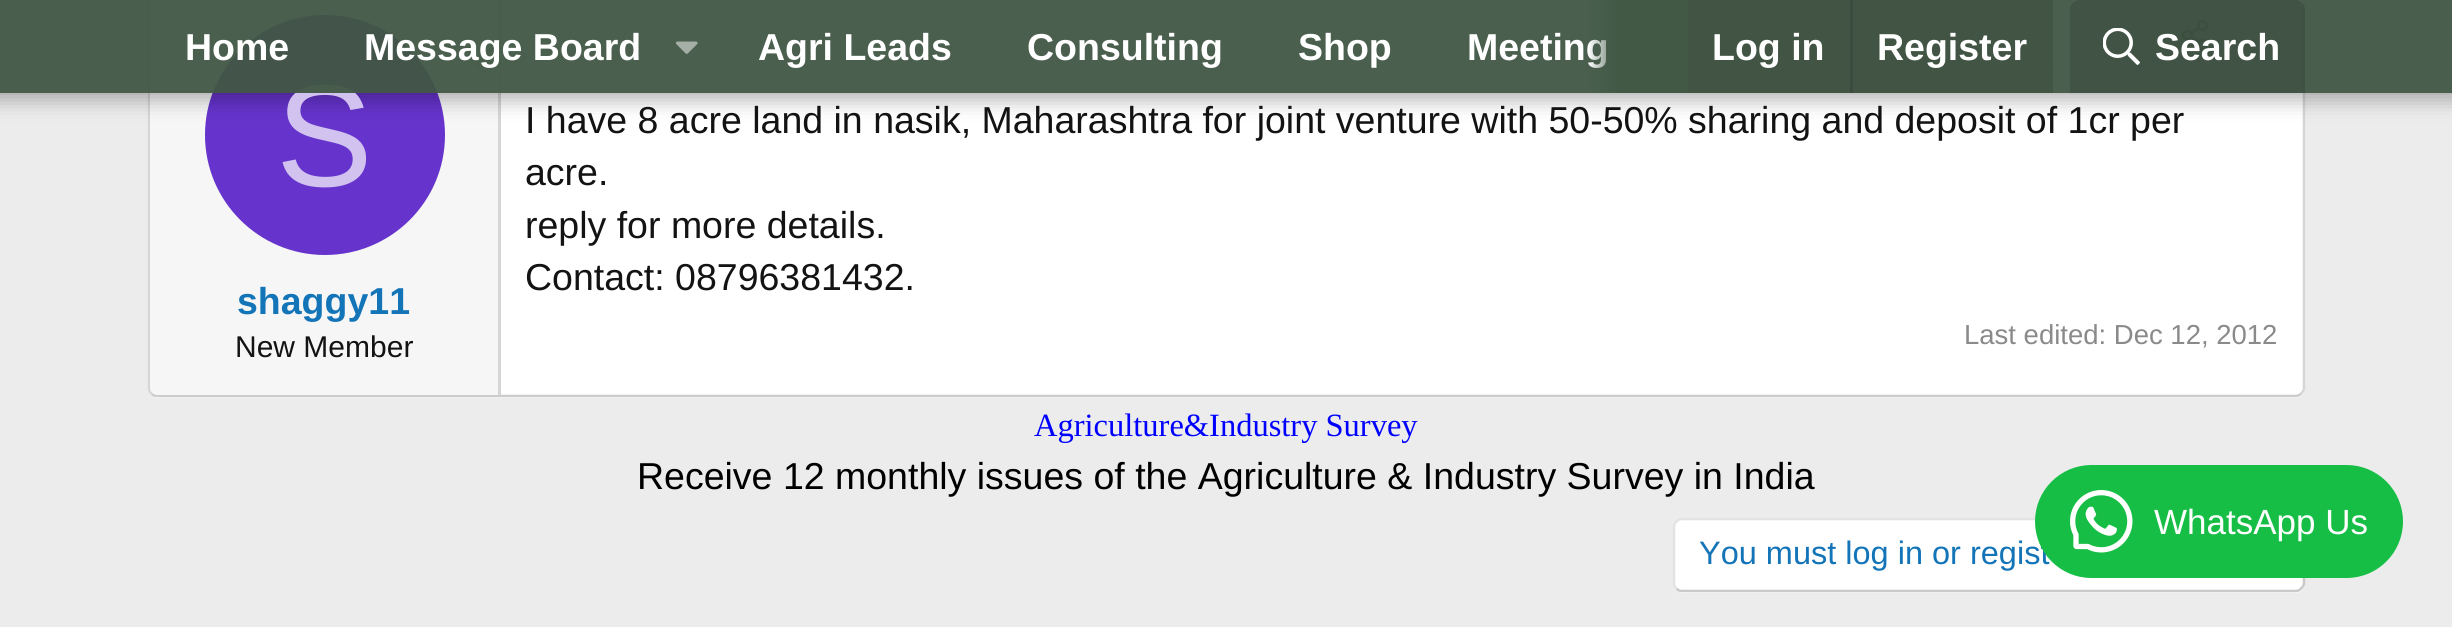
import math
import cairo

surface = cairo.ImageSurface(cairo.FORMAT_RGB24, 2452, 627)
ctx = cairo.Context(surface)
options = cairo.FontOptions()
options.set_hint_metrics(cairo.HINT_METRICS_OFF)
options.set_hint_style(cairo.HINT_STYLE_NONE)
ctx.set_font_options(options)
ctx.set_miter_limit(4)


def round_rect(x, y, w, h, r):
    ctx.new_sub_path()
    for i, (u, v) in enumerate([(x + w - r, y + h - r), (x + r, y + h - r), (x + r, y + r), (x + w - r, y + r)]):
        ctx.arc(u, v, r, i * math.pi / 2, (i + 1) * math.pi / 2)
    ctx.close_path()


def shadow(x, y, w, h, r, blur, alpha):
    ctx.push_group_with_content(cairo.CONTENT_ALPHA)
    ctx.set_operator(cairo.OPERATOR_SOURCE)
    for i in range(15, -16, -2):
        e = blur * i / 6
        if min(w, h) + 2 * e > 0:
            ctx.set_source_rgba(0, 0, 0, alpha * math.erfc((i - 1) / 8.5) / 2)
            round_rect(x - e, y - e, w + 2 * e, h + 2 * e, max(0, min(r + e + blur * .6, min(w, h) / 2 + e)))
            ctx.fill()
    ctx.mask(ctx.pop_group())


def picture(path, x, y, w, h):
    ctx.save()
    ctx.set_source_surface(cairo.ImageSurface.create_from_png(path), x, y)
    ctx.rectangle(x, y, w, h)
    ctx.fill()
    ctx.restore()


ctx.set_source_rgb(0.922, 0.922, 0.922)
ctx.paint()
ctx.set_source_rgb(1, 1, 1)
round_rect(148, -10, 2157, 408, 10)
ctx.fill()
ctx.new_path()
ctx.move_to(2301, -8.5)
ctx.curve_to(2303, -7, 2304, -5, 2304, -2.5)
ctx.line_to(2304, 387.5)
ctx.curve_to(2304, 390, 2303, 392, 2301, 393.5)
ctx.set_source_rgb(0.839, 0.839, 0.839)
ctx.set_line_width(2.5)
ctx.stroke()
ctx.new_path()
ctx.move_to(2301, 393.5)
ctx.curve_to(2299.5, 395.5, 2297.5, 396, 2295, 396)
ctx.line_to(157.5, 396)
ctx.curve_to(155, 396, 153, 395.5, 151.5, 393.5)
ctx.set_source_rgb(0.8, 0.8, 0.8)
ctx.stroke()
ctx.new_path()
ctx.move_to(151.5, 393.5)
ctx.curve_to(149.5, 392, 149, 390, 149, 387.5)
ctx.line_to(149, -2.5)
ctx.curve_to(149, -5, 149.5, -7, 151.5, -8.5)
ctx.set_source_rgb(0.839, 0.839, 0.839)
ctx.stroke()
ctx.set_source_rgb(0.961, 0.961, 0.961)
ctx.new_path()
ctx.move_to(158, -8)
ctx.line_to(500, -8)
ctx.line_to(500, 395)
ctx.line_to(158, 395)
ctx.curve_to(153.5, 395, 150, 391.5, 150, 387)
ctx.line_to(150, 0)
ctx.curve_to(150, -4.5, 153.5, -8, 158, -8)
ctx.close_path()
ctx.fill()
ctx.set_source_rgb(0.839, 0.839, 0.839)
ctx.rectangle(498, 0, 3, 395)
ctx.fill()
ctx.new_path()
ctx.move_to(500, 40)
ctx.line_to(500, 90)
ctx.line_to(475, 65)
ctx.close_path()
ctx.fill()
ctx.set_source_rgb(1, 1, 1)
ctx.new_path()
ctx.move_to(500, 42)
ctx.line_to(500, 88)
ctx.line_to(478, 65)
ctx.close_path()
ctx.fill()
ctx.set_source_rgb(0.4, 0.2, 0.8)
ctx.arc(325, 135, 120, 0, 2 * math.pi)
ctx.fill()
ctx.set_source_rgb(0.898, 0.898, 0.898)
ctx.rectangle(525, 65, 1753, 3)
ctx.fill()
picture("img3.png", 2181, 20, 28, 30)
ctx.save()
ctx.set_fill_rule(cairo.FILL_RULE_EVEN_ODD)
ctx.new_path()
ctx.move_to(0, 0)
ctx.line_to(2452, 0)
ctx.line_to(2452, 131)
ctx.line_to(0, 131)
ctx.close_path()
ctx.move_to(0, 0)
ctx.line_to(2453, 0)
ctx.line_to(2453, 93)
ctx.line_to(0, 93)
ctx.close_path()
ctx.clip()
ctx.set_source_rgb(0, 0, 0)
shadow(-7, -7, 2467, 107, 0, 10, 0.3)
ctx.restore()
ctx.select_font_face("Liberation Sans")
ctx.set_font_size(145)
ctx.set_source_rgb(0.82, 0.761, 0.941)
ctx.move_to(276, 186)
ctx.show_text("S")
ctx.set_source_rgba(0.255, 0.345, 0.271, 0.95)
ctx.rectangle(0, 0, 2452, 93)
ctx.fill()
ctx.select_font_face("Liberation Sans", cairo.FONT_SLANT_NORMAL, cairo.FONT_WEIGHT_BOLD)
ctx.set_font_size(37.5)
ctx.set_source_rgb(1, 1, 1)
ctx.move_to(185, 60)
ctx.show_text("Home")
ctx.move_to(364, 60)
ctx.show_text("Message Board")
picture("img1.png", 675, 41, 23, 13)
ctx.move_to(758, 60)
ctx.show_text("Agri Leads")
ctx.move_to(1027, 60)
ctx.show_text("Consulting")
ctx.move_to(1298, 60)
ctx.show_text("Shop")
ctx.move_to(1467, 60)
ctx.show_text("Meeting")
gradient = cairo.LinearGradient(1588, 46, 1688, 46)
gradient.add_color_stop_rgba(0, 0.255, 0.345, 0.271, 0)
gradient.add_color_stop_rgba(0.33, 0.255, 0.345, 0.271, 0.95)
ctx.set_source(gradient)
ctx.rectangle(1589, 0, 99, 93)
ctx.fill()
ctx.set_source_rgb(0.259, 0.333, 0.271)
ctx.rectangle(1688, 0, 365, 93)
ctx.fill()
ctx.set_source_rgb(1, 1, 1)
ctx.move_to(1712, 60)
ctx.show_text("Log in")
ctx.set_source_rgb(0.231, 0.294, 0.243)
ctx.rectangle(1850, 0, 3, 93)
ctx.fill()
ctx.set_source_rgb(1, 1, 1)
ctx.move_to(1877, 60)
ctx.show_text("Register")
ctx.set_source_rgba(0.078, 0.078, 0.078, 0.15)
ctx.new_path()
ctx.move_to(2080, 0)
ctx.line_to(2295, 0)
ctx.curve_to(2300.5, 0, 2305, 4.5, 2305, 10)
ctx.line_to(2305, 93)
ctx.line_to(2070, 93)
ctx.line_to(2070, 10)
ctx.curve_to(2070, 4.5, 2074.5, 0, 2080, 0)
ctx.close_path()
ctx.fill()
picture("img2.png", 2103, 28, 37, 37)
ctx.set_source_rgb(1, 1, 1)
ctx.move_to(2155, 60)
ctx.show_text("Search")
ctx.set_source_rgb(0.078, 0.455, 0.722)
ctx.move_to(237, 314)
ctx.show_text("shaggy11")
ctx.select_font_face("Liberation Sans")
ctx.set_font_size(30)
ctx.set_source_rgb(0.078, 0.078, 0.078)
ctx.move_to(235, 357)
ctx.show_text("New Member")
ctx.set_font_size(37.5)
ctx.move_to(525, 133)
ctx.show_text("I have 8 acre land in nasik, Maharashtra for joint venture with 50-50% sharing and deposit of 1cr per")
ctx.move_to(525, 185)
ctx.show_text("acre.")
ctx.move_to(525, 238)
ctx.show_text("reply for more details.")
ctx.move_to(525, 290)
ctx.show_text("Contact: 08796381432.")
ctx.set_font_size(27.5)
ctx.set_source_rgb(0.541, 0.541, 0.541)
ctx.move_to(1964, 344)
ctx.show_text("Last edited: Dec 12, 2012")
ctx.select_font_face("Liberation Serif")
ctx.set_font_size(32.5)
ctx.set_source_rgb(0, 0, 1)
ctx.move_to(1034, 436)
ctx.show_text("Agriculture&Industry Survey")
ctx.select_font_face("Liberation Sans")
ctx.set_font_size(37.5)
ctx.set_source_rgb(0, 0, 0)
ctx.move_to(637, 489)
ctx.show_text("Receive 12 monthly issues of the Agriculture & Industry Survey in India")
ctx.set_source_rgb(1, 1, 1)
round_rect(1673, 518, 632, 75, 10)
ctx.fill()
ctx.new_path()
ctx.move_to(2301, 521.5)
ctx.curve_to(2303, 523, 2304, 525, 2304, 527.5)
ctx.line_to(2304, 582.5)
ctx.curve_to(2304, 585, 2303, 587, 2301, 588.5)
ctx.curve_to(2299.5, 590.5, 2297.5, 591, 2295, 591)
ctx.line_to(1682.5, 591)
ctx.curve_to(1680, 591, 1678, 590.5, 1676.5, 588.5)
ctx.set_source_rgb(0.788, 0.788, 0.788)
ctx.stroke()
ctx.new_path()
ctx.move_to(1676.5, 588.5)
ctx.curve_to(1674.5, 587, 1674, 585, 1674, 582.5)
ctx.line_to(1674, 527.5)
ctx.curve_to(1674, 525, 1674.5, 523, 1676.5, 521.5)
ctx.curve_to(1678, 519.5, 1680, 519, 1682.5, 519)
ctx.line_to(2295, 519)
ctx.curve_to(2297.5, 519, 2299.5, 519.5, 2301, 521.5)
ctx.set_source_rgb(0.89, 0.89, 0.89)
ctx.stroke()
ctx.set_font_size(32.5)
ctx.set_source_rgb(0.078, 0.455, 0.722)
ctx.move_to(1699, 564)
ctx.show_text("You must log in or regist")
ctx.set_source_rgb(0.086, 0.745, 0.271)
round_rect(2035, 465, 368, 113, 56.5)
ctx.fill()
picture("img4.png", 2070, 490, 63, 63)
ctx.set_font_size(35)
ctx.set_source_rgb(1, 1, 1)
ctx.move_to(2154, 534)
ctx.show_text("WhatsApp Us")
surface.write_to_png("page.png")
